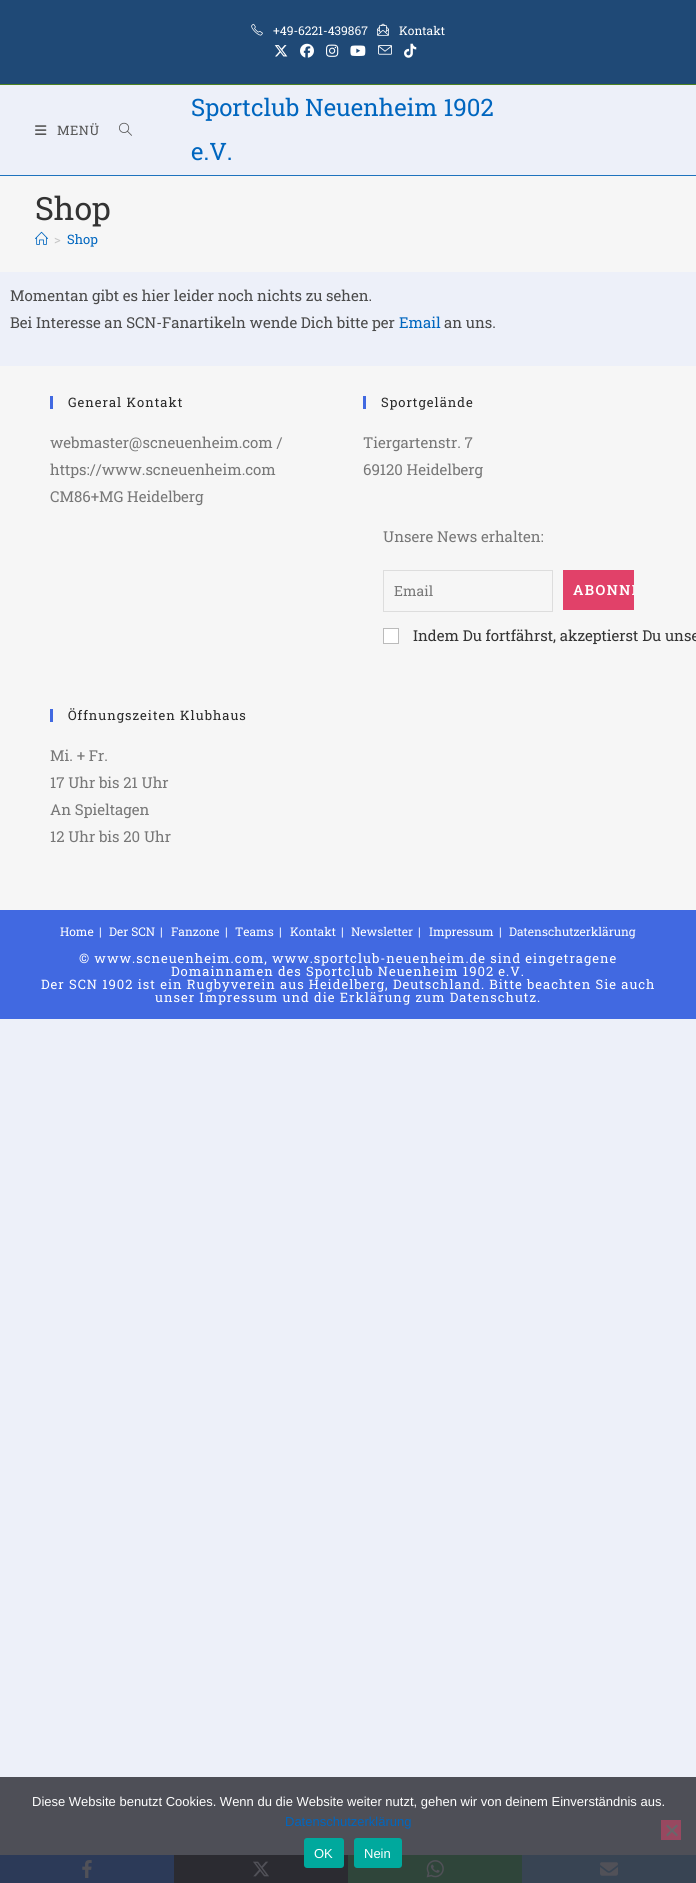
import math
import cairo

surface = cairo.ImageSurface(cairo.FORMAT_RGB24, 696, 1883)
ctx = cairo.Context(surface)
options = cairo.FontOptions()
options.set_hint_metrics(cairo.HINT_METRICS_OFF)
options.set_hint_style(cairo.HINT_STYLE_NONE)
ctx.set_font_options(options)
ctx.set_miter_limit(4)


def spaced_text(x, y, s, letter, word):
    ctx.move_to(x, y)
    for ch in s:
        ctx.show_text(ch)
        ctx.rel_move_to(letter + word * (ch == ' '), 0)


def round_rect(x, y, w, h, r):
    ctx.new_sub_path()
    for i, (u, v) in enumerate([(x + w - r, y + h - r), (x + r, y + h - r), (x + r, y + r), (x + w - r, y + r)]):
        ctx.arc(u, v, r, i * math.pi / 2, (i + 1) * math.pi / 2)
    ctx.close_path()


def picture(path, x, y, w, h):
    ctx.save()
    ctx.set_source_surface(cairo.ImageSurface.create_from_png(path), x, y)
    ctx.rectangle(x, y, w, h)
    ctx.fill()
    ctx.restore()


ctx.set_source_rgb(0.929, 0.941, 0.976)
ctx.paint()
ctx.set_source_rgb(0.306, 0.31, 0.341)
ctx.rectangle(0, 1777, 696, 78)
ctx.fill()
ctx.set_source_rgb(0.122, 0.286, 0.463)
ctx.rectangle(0, 0, 696, 84)
ctx.fill()
ctx.set_source_rgb(0.302, 0.51, 0.129)
ctx.rectangle(0, 84, 696, 1)
ctx.fill()
picture("img1.png", 251, 23, 12, 13)
ctx.select_font_face("Roboto Slab")
ctx.set_font_size(12)
ctx.set_source_rgb(1, 1, 1)
ctx.move_to(273, 35)
ctx.show_text("+49-6221-439867")
picture("img2.png", 377, 23, 12, 13)
ctx.move_to(399, 35)
ctx.show_text("Kontakt")
picture("img3.png", 274, 45, 14, 12)
picture("img4.png", 300, 43, 14, 15)
picture("img5.png", 326, 44, 13, 13)
picture("img6.png", 350, 45, 16, 11)
picture("img7.png", 378, 45, 14, 10)
picture("img8.png", 404, 43, 13, 15)
ctx.set_source_rgb(0.118, 0.451, 0.745)
ctx.rectangle(0, 175, 696, 1)
ctx.fill()
picture("img9.png", 35, 125, 12, 10)
ctx.set_font_size(13)
ctx.set_source_rgb(0.333, 0.333, 0.333)
spaced_text(57, 135, "MENÜ", 0.5, 0)
picture("img10.png", 119, 122, 13, 14)
ctx.set_font_size(24)
ctx.set_source_rgb(0, 0.4, 0.749)
ctx.move_to(191, 116)
ctx.show_text("Sportclub Neuenheim 1902")
ctx.move_to(191, 160)
ctx.show_text("e.V.")
ctx.set_source_rgb(0.961, 0.961, 0.961)
ctx.rectangle(0, 176, 696, 96)
ctx.fill()
ctx.set_font_size(32)
ctx.set_source_rgb(0.2, 0.2, 0.2)
ctx.move_to(35, 220)
ctx.show_text("Shop")
picture("img11.png", 35, 231, 13, 14)
ctx.set_font_size(13)
ctx.set_source_rgb(0.776, 0.776, 0.776)
ctx.move_to(54, 244)
ctx.show_text(">")
ctx.set_source_rgb(0, 0.4, 0.749)
ctx.move_to(67, 244)
ctx.show_text("Shop")
ctx.set_font_size(15)
ctx.set_source_rgb(0.29, 0.29, 0.29)
ctx.move_to(10, 301)
ctx.show_text("Momentan gibt es hier leider noch nichts zu sehen.")
ctx.move_to(10, 328)
ctx.show_text("Bei Interesse an SCN-Fanartikeln wende Dich bitte per")
ctx.set_source_rgb(0, 0.4, 0.749)
ctx.move_to(399, 328)
ctx.show_text("Email")
ctx.set_source_rgb(0.29, 0.29, 0.29)
ctx.move_to(444, 328)
ctx.show_text("an uns.")
ctx.set_source_rgb(0.961, 0.961, 0.961)
ctx.rectangle(0, 366, 696, 544)
ctx.fill()
ctx.set_source_rgb(0.255, 0.412, 0.882)
ctx.rectangle(50, 396, 3, 13)
ctx.fill()
ctx.set_font_size(13)
ctx.set_source_rgb(0.161, 0.161, 0.161)
spaced_text(68, 407, "General Kontakt", 1, 0)
ctx.set_font_size(15)
ctx.set_source_rgb(0.467, 0.467, 0.467)
ctx.move_to(50, 448)
ctx.show_text("webmaster@scneuenheim.com /")
ctx.move_to(50, 475)
ctx.show_text("https://www.scneuenheim.com")
ctx.move_to(50, 502)
ctx.show_text("CM86+MG Heidelberg")
ctx.set_source_rgb(0.255, 0.412, 0.882)
ctx.rectangle(363, 396, 3, 13)
ctx.fill()
ctx.set_font_size(13)
ctx.set_source_rgb(0.161, 0.161, 0.161)
spaced_text(381, 407, "Sportgelände", 1, 0)
ctx.set_font_size(15)
ctx.set_source_rgb(0.467, 0.467, 0.467)
ctx.move_to(363, 448)
ctx.show_text("Tiergartenstr. 7")
ctx.move_to(363, 475)
ctx.show_text("69120 Heidelberg")
ctx.move_to(383, 542)
ctx.show_text("Unsere News erhalten:")
ctx.rectangle(383.5, 570.5, 169, 41)
ctx.set_source_rgb(0.867, 0.867, 0.867)
ctx.set_line_width(1)
ctx.stroke()
ctx.set_font_size(14)
ctx.set_source_rgb(0.467, 0.467, 0.467)
ctx.move_to(394, 596)
ctx.show_text("Email")
ctx.set_source_rgb(0.882, 0.255, 0.412)
ctx.rectangle(563, 570, 71, 40)
ctx.fill()
ctx.save()
ctx.rectangle(563, 570, 71, 40)
ctx.clip()
ctx.select_font_face("Roboto Slab SemiBold")
ctx.set_source_rgb(1, 1, 1)
spaced_text(573, 595, "ABONNI", 1.5, 0)
ctx.restore()
ctx.set_source_rgb(1, 1, 1)
ctx.rectangle(383.5, 628.5, 15, 15)
ctx.fill_preserve()
ctx.set_source_rgb(0.733, 0.733, 0.733)
ctx.stroke()
ctx.set_font_size(15)
ctx.set_source_rgb(0.2, 0.2, 0.2)
ctx.move_to(413, 641)
ctx.show_text("Indem Du fortfährst, akzeptierst Du unse")
ctx.set_source_rgb(0.255, 0.412, 0.882)
ctx.rectangle(50, 709, 3, 13)
ctx.fill()
ctx.set_font_size(13)
ctx.set_source_rgb(0.161, 0.161, 0.161)
spaced_text(68, 720, "Öffnungszeiten Klubhaus", 1, 0)
ctx.set_font_size(15)
ctx.set_source_rgb(0.467, 0.467, 0.467)
ctx.move_to(50, 761)
ctx.show_text("Mi. + Fr.")
ctx.move_to(50, 788)
ctx.show_text("17 Uhr bis 21 Uhr")
ctx.move_to(50, 815)
ctx.show_text("An Spieltagen")
ctx.move_to(50, 842)
ctx.show_text("12 Uhr bis 20 Uhr")
ctx.set_source_rgb(0.255, 0.412, 0.882)
ctx.rectangle(0, 910, 696, 109)
ctx.fill()
ctx.set_font_size(12)
ctx.set_source_rgb(1, 1, 1)
ctx.move_to(60, 936)
ctx.show_text("Home")
ctx.move_to(99, 936)
ctx.show_text("|")
ctx.move_to(109, 936)
ctx.show_text("Der SCN")
ctx.move_to(160, 936)
ctx.show_text("|")
ctx.move_to(171, 936)
ctx.show_text("Fanzone")
ctx.move_to(225, 936)
ctx.show_text("|")
ctx.move_to(235, 936)
ctx.show_text("Teams")
ctx.move_to(279, 936)
ctx.show_text("|")
ctx.move_to(290, 936)
ctx.show_text("Kontakt")
ctx.move_to(341, 936)
ctx.show_text("|")
ctx.move_to(351, 936)
ctx.show_text("Newsletter")
ctx.move_to(418, 936)
ctx.show_text("|")
ctx.move_to(429, 936)
ctx.show_text("Impressum")
ctx.move_to(499, 936)
ctx.show_text("|")
ctx.move_to(509, 936)
ctx.show_text("Datenschutzerklärung")
ctx.set_font_size(13)
spaced_text(79, 963, "© www.scneuenheim.com, www.sportclub-neuenheim.de sind eingetragene", 1, 0)
spaced_text(171, 976, "Domainnamen des Sportclub Neuenheim 1902 e.V.", 1, 0)
spaced_text(41, 989, "Der SCN 1902 ist ein Rugbyverein aus Heidelberg, Deutschland. Bitte beachten Sie auch", 1, 0)
spaced_text(155, 1002, "unser Impressum und die Erklärung zum Datenschutz.", 1, 0)
ctx.select_font_face("Liberation Sans")
ctx.move_to(32, 1806)
ctx.show_text("Diese Website benutzt Cookies. Wenn du die Website weiter nutzt, gehen wir von deinem Einverständnis aus.")
ctx.set_source_rgb(0, 0.4, 0.749)
ctx.move_to(285, 1826)
ctx.show_text("Datenschutzerklärung")
ctx.set_source_rgb(0.596, 0.282, 0.376)
ctx.rectangle(661, 1820, 20, 20)
ctx.fill()
ctx.set_source_rgb(0.404, 0.404, 0.42)
ctx.new_path()
ctx.move_to(676.5, 1824.5)
ctx.line_to(678, 1826)
ctx.line_to(667.5, 1836.5)
ctx.line_to(666, 1835)
ctx.close_path()
ctx.fill()
ctx.new_path()
ctx.move_to(666, 1826)
ctx.line_to(667.5, 1824.5)
ctx.line_to(678, 1835)
ctx.line_to(676.5, 1836.5)
ctx.close_path()
ctx.fill()
ctx.set_source_rgb(0.169, 0.169, 0.192)
ctx.rectangle(174, 1855, 174, 28)
ctx.fill()
ctx.set_source_rgb(0, 0.663, 0.616)
round_rect(304, 1838, 40, 30, 3)
ctx.fill()
ctx.set_source_rgb(1, 1, 1)
ctx.move_to(314, 1858)
ctx.show_text("OK")
ctx.set_source_rgb(0.184, 0.271, 0.227)
ctx.rectangle(348, 1855, 174, 28)
ctx.fill()
ctx.set_source_rgb(0, 0.663, 0.616)
round_rect(354, 1838, 48, 30, 3)
ctx.fill()
ctx.set_source_rgb(1, 1, 1)
ctx.move_to(364, 1858)
ctx.show_text("Nein")
ctx.set_source_rgb(0.173, 0.227, 0.345)
ctx.rectangle(0, 1855, 174, 28)
ctx.fill()
picture("img12.png", 82, 1860, 10, 18)
picture("img13.png", 253, 1861, 16, 16)
picture("img14.png", 426, 1860, 18, 18)
ctx.set_source_rgb(0.22, 0.267, 0.325)
ctx.rectangle(522, 1855, 174, 28)
ctx.fill()
picture("img15.png", 600, 1862, 18, 14)
surface.write_to_png("page.png")
